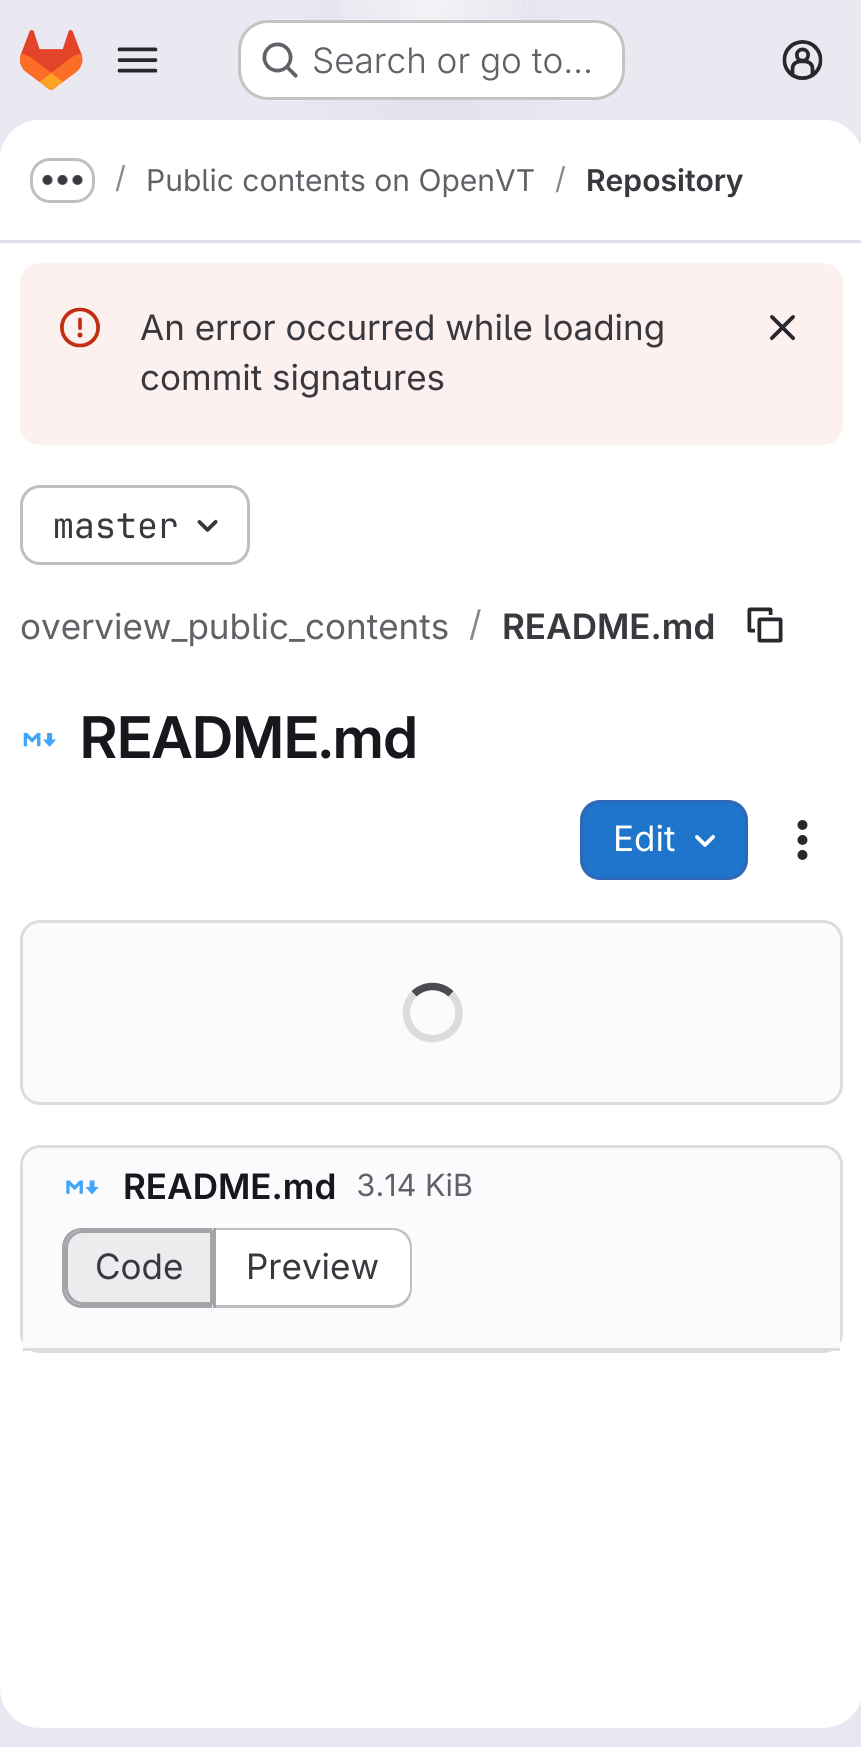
import math
import cairo

surface = cairo.ImageSurface(cairo.FORMAT_RGB24, 861, 1747)
ctx = cairo.Context(surface)
options = cairo.FontOptions()
options.set_hint_metrics(cairo.HINT_METRICS_OFF)
options.set_hint_style(cairo.HINT_STYLE_NONE)
ctx.set_font_options(options)
ctx.set_miter_limit(4)


def round_rect(x, y, w, h, r):
    ctx.new_sub_path()
    for i, (u, v) in enumerate([(x + w - r, y + h - r), (x + r, y + h - r), (x + r, y + r), (x + w - r, y + r)]):
        ctx.arc(u, v, r, i * math.pi / 2, (i + 1) * math.pi / 2)
    ctx.close_path()


def picture(path, x, y, w, h):
    ctx.save()
    ctx.set_source_surface(cairo.ImageSurface.create_from_png(path), x, y)
    ctx.rectangle(x, y, w, h)
    ctx.fill()
    ctx.restore()


ctx.set_source_rgb(1, 1, 1)
ctx.paint()
gradient = cairo.LinearGradient(594, 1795, 269, -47)
gradient.add_color_stop_rgba(0, 0.91, 0.902, 0.941, 1)
gradient.add_color_stop_rgba(0.7, 0.918, 0.914, 0.949, 1)
ctx.set_source(gradient)
ctx.rectangle(0, 0, 861, 1747)
ctx.fill()
gradient = cairo.RadialGradient(0, 0, 0, 0, 0, 1)
gradient.set_matrix(cairo.Matrix(1 / 431, 0, 0, 1 / 1748, -1 * 431 / 431, -1 * 0 / 1748))
gradient.add_color_stop_rgba(0, 0.894, 0.886, 0.929, 1)
gradient.add_color_stop_rgba(0.41, 0.894, 0.886, 0.929, 0)
ctx.set_source(gradient)
ctx.rectangle(303, 0, 256, 120)
ctx.fill()
gradient = cairo.RadialGradient(0, 0, 0, 0, 0, 1)
gradient.set_matrix(cairo.Matrix(1 / 431, 0, 0, 1 / 1748, -1 * 431 / 431, -1 * 0 / 1748))
gradient.add_color_stop_rgba(0, 0.894, 0.886, 0.925, 1)
gradient.add_color_stop_rgba(0.29, 0.894, 0.886, 0.925, 0)
ctx.set_source(gradient)
ctx.rectangle(379, 0, 104, 119)
ctx.fill()
gradient = cairo.RadialGradient(431, 0, 0, 431, 0, 1800)
gradient.add_color_stop_rgba(0, 1, 1, 1, 0.6)
gradient.add_color_stop_rgba(0.06, 1, 1, 1, 0)
ctx.set_source(gradient)
ctx.rectangle(340, 0, 182, 20)
ctx.fill()
picture("img1.png", 20, 30, 63, 60)
picture("img2.png", 117, 47, 41, 26)
ctx.set_source_rgb(1, 1, 1)
round_rect(238, 20, 387, 80, 30)
ctx.fill()
round_rect(239.5, 21.5, 384, 77, 28.5)
ctx.set_source_rgba(0.02, 0.02, 0.024, 0.24)
ctx.set_line_width(3)
ctx.stroke()
picture("img3.png", 262, 42, 36, 36)
ctx.select_font_face("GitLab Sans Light")
ctx.set_font_size(35)
ctx.set_source_rgb(0.384, 0.38, 0.408)
ctx.move_to(312, 73)
ctx.show_text("Search or go to…")
picture("img4.png", 782, 40, 41, 40)
ctx.set_source_rgb(1, 1, 1)
round_rect(0, 120, 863, 1608, 40)
ctx.fill()
ctx.new_path()
ctx.move_to(40, 120)
ctx.line_to(823, 120)
ctx.curve_to(845, 120, 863, 138, 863, 160)
ctx.line_to(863, 243)
ctx.line_to(0, 243)
ctx.line_to(0, 160)
ctx.curve_to(0, 138, 18, 120, 40, 120)
ctx.close_path()
ctx.fill()
ctx.set_source_rgb(0.882, 0.875, 0.925)
ctx.rectangle(0, 240, 861, 3)
ctx.fill()
round_rect(31.5, 159.5, 62, 42, 18.5)
ctx.set_source_rgb(0.749, 0.749, 0.765)
ctx.stroke()
picture("img5.png", 42, 175, 41, 10)
ctx.select_font_face("GitLab Sans")
ctx.set_font_size(30)
ctx.set_source_rgb(0.537, 0.533, 0.553)
ctx.move_to(115, 188)
ctx.show_text("/")
ctx.set_source_rgb(0.384, 0.38, 0.408)
ctx.move_to(146, 191)
ctx.show_text("Public contents on OpenVT")
ctx.set_source_rgb(0.537, 0.533, 0.553)
ctx.move_to(555, 189)
ctx.show_text("/")
ctx.select_font_face("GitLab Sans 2 SemiBold")
ctx.set_source_rgb(0.227, 0.22, 0.247)
ctx.move_to(586, 191)
ctx.show_text("Repository")
ctx.set_source_rgb(0.988, 0.945, 0.937)
round_rect(20, 263, 823, 182, 20)
ctx.fill()
picture("img6.png", 60, 307, 40, 41)
ctx.select_font_face("GitLab Sans")
ctx.set_font_size(35)
ctx.set_source_rgb(0.227, 0.22, 0.247)
ctx.move_to(140, 340)
ctx.show_text("An error occurred while loading")
ctx.move_to(140, 390)
ctx.show_text("commit signatures")
picture("img7.png", 769, 315, 26, 26)
round_rect(21.5, 486.5, 227, 77, 18.5)
ctx.set_source_rgb(0.749, 0.749, 0.765)
ctx.stroke()
ctx.select_font_face("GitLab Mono")
ctx.set_source_rgb(0.227, 0.22, 0.247)
ctx.move_to(53, 538)
ctx.show_text("master")
picture("img8.png", 197, 519, 21, 13)
ctx.select_font_face("GitLab Sans")
ctx.set_source_rgb(0.384, 0.38, 0.408)
ctx.move_to(20, 639)
ctx.show_text("overview_public_contents")
ctx.set_source_rgb(0.537, 0.533, 0.553)
ctx.move_to(469, 636)
ctx.show_text("/")
ctx.select_font_face("GitLab Sans 2 SemiBold")
ctx.set_source_rgb(0.227, 0.22, 0.247)
ctx.move_to(502, 639)
ctx.show_text("README.md")
picture("img9.png", 747, 607, 36, 36)
picture("img10.png", 23, 733, 34, 14)
ctx.select_font_face("GitLab Sans SemiBold")
ctx.set_font_size(57.5)
ctx.set_source_rgb(0.094, 0.09, 0.114)
ctx.move_to(80, 758)
ctx.show_text("README.md")
ctx.set_source_rgb(0.122, 0.459, 0.796)
round_rect(581.5, 801.5, 165, 77, 18.5)
ctx.fill_preserve()
ctx.set_source_rgb(0.184, 0.408, 0.706)
ctx.stroke()
ctx.select_font_face("GitLab Sans")
ctx.set_font_size(35)
ctx.set_source_rgb(1, 1, 1)
ctx.move_to(613, 851)
ctx.show_text("Edit")
picture("img11.png", 695, 834, 21, 13)
picture("img12.png", 797, 820, 11, 40)
ctx.set_source_rgb(0.984, 0.98, 0.992)
round_rect(21.5, 921.5, 820, 182, 18.5)
ctx.fill_preserve()
ctx.set_source_rgb(0.863, 0.863, 0.871)
ctx.stroke()
ctx.new_path()
ctx.move_to(414, 994)
ctx.curve_to(424, 984, 441, 984, 451, 994)
ctx.set_source_rgb(0.298, 0.294, 0.318)
ctx.set_line_width(7.5)
ctx.stroke()
ctx.new_path()
ctx.move_to(451, 994)
ctx.curve_to(456, 999, 459, 1005.5, 459, 1012.5)
ctx.curve_to(459, 1044, 413, 1048.5, 407, 1017.5)
ctx.curve_to(405, 1009, 408, 1000, 414, 994)
ctx.set_source_rgb(0.863, 0.863, 0.871)
ctx.stroke()
round_rect(21.5, 1146.5, 820, 205, 18.5)
ctx.set_line_width(3)
ctx.stroke()
ctx.set_source_rgb(0.984, 0.98, 0.992)
ctx.new_path()
ctx.move_to(41, 1148)
ctx.line_to(822, 1148)
ctx.curve_to(832, 1148, 840, 1156, 840, 1166)
ctx.line_to(840, 1350)
ctx.line_to(23, 1350)
ctx.line_to(23, 1166)
ctx.curve_to(23, 1156, 31, 1148, 41, 1148)
ctx.close_path()
ctx.fill()
ctx.set_source_rgb(0.863, 0.863, 0.871)
ctx.rectangle(23, 1348, 817, 3)
ctx.fill()
picture("img13.png", 66, 1180, 33, 15)
ctx.select_font_face("GitLab Sans 2 SemiBold")
ctx.set_source_rgb(0.094, 0.09, 0.114)
ctx.move_to(123, 1199)
ctx.show_text("README.md")
ctx.select_font_face("GitLab Sans")
ctx.set_font_size(30.5)
ctx.set_source_rgb(0.384, 0.38, 0.408)
ctx.move_to(356, 1196)
ctx.show_text("3.14 KiB")
ctx.set_source_rgb(0.925, 0.925, 0.937)
ctx.new_path()
ctx.move_to(83, 1231.5)
ctx.line_to(211.5, 1231.5)
ctx.line_to(211.5, 1303.5)
ctx.line_to(83, 1303.5)
ctx.curve_to(74, 1303.5, 66.5, 1296, 66.5, 1287)
ctx.line_to(66.5, 1248)
ctx.curve_to(66.5, 1239, 74, 1231.5, 83, 1231.5)
ctx.close_path()
ctx.fill_preserve()
ctx.set_source_rgb(0.643, 0.639, 0.659)
ctx.stroke()
ctx.set_fill_rule(cairo.FILL_RULE_EVEN_ODD)
ctx.new_path()
ctx.move_to(82, 1228)
ctx.line_to(212, 1228)
ctx.line_to(212, 1308)
ctx.line_to(82, 1308)
ctx.curve_to(71, 1308, 62, 1299, 62, 1288)
ctx.line_to(62, 1248)
ctx.curve_to(62, 1236, 71, 1228, 82, 1228)
ctx.close_path()
ctx.move_to(82, 1230)
ctx.line_to(212, 1230)
ctx.line_to(212, 1305)
ctx.line_to(82, 1305)
ctx.curve_to(73, 1305, 65, 1297, 65, 1288)
ctx.line_to(65, 1248)
ctx.curve_to(65, 1238, 73, 1230, 82, 1230)
ctx.close_path()
ctx.fill()
ctx.set_font_size(35)
ctx.set_source_rgb(0.227, 0.22, 0.247)
ctx.move_to(95, 1279)
ctx.show_text("Code")
ctx.set_source_rgb(1, 1, 1)
ctx.new_path()
ctx.move_to(215, 1230)
ctx.line_to(392, 1230)
ctx.curve_to(402, 1230, 410, 1238, 410, 1248)
ctx.line_to(410, 1287)
ctx.curve_to(410, 1297, 402, 1305, 392, 1305)
ctx.line_to(215, 1305)
ctx.close_path()
ctx.fill()
ctx.set_source_rgb(0.749, 0.749, 0.765)
ctx.new_path()
ctx.move_to(215, 1228)
ctx.line_to(392, 1228)
ctx.curve_to(404, 1228, 412, 1236, 412, 1248)
ctx.line_to(412, 1288)
ctx.curve_to(412, 1299, 404, 1308, 392, 1308)
ctx.line_to(215, 1308)
ctx.close_path()
ctx.move_to(215, 1230)
ctx.line_to(392, 1230)
ctx.curve_to(402, 1230, 410, 1238, 410, 1248)
ctx.line_to(410, 1288)
ctx.curve_to(410, 1297, 402, 1305, 392, 1305)
ctx.line_to(215, 1305)
ctx.close_path()
ctx.fill()
ctx.set_source_rgb(0.643, 0.639, 0.659)
ctx.rectangle(213, 1228, 3, 80)
ctx.fill()
ctx.set_source_rgb(0.227, 0.22, 0.247)
ctx.move_to(246, 1279)
ctx.show_text("Preview")
surface.write_to_png("page.png")
